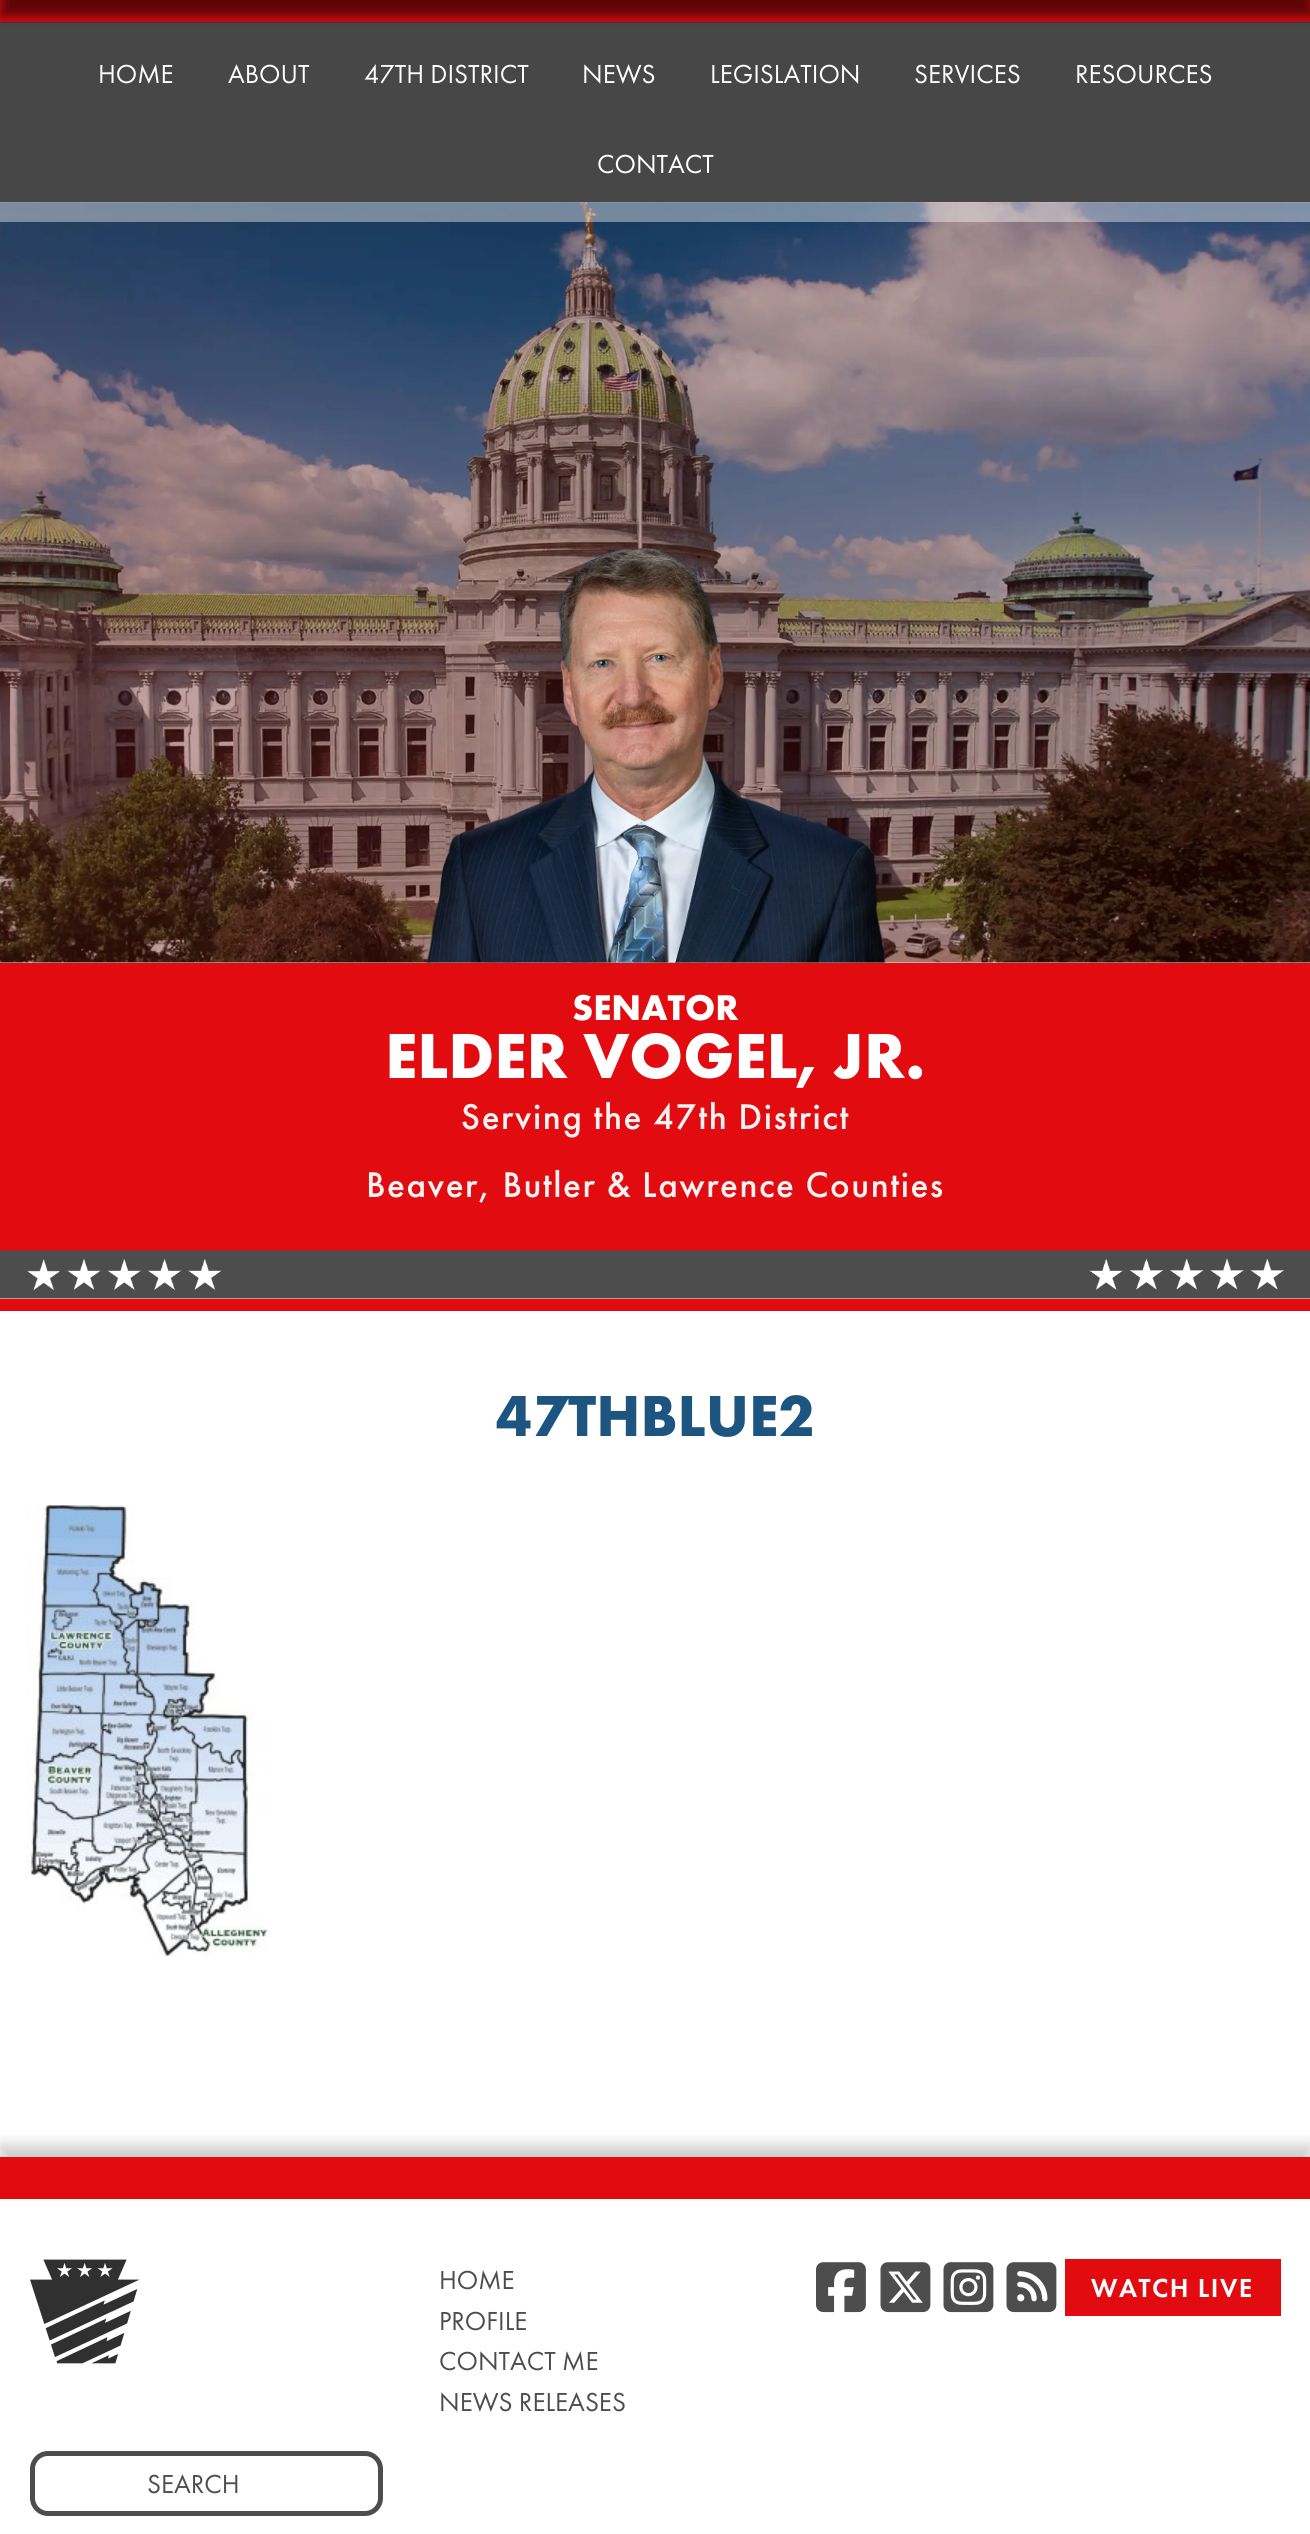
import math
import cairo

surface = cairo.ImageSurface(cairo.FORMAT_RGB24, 1310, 2534)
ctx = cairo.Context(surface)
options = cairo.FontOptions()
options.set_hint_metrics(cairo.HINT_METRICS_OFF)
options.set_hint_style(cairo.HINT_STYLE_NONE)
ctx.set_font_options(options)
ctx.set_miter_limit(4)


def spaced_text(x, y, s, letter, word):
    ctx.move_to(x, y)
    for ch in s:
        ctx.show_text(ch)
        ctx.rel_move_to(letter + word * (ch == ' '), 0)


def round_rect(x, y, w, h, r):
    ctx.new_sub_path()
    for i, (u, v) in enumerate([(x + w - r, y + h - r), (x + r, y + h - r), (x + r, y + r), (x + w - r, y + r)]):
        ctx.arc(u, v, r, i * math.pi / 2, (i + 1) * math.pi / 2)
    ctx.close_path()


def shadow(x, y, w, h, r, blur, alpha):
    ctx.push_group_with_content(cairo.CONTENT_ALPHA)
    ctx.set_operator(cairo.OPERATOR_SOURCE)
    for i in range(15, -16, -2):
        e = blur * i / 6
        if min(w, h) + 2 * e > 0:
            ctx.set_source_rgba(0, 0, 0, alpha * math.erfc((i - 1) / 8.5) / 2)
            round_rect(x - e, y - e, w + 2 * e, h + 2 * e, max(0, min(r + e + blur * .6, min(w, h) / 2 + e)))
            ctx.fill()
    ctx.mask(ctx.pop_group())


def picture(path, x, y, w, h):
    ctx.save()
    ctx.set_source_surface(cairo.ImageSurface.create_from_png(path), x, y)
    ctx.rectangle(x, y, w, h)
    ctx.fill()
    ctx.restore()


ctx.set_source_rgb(1, 1, 1)
ctx.paint()
ctx.set_source_rgb(0.886, 0.047, 0.063)
ctx.rectangle(0, 0, 1310, 23)
ctx.fill()
ctx.set_source_rgb(0, 0, 0)
shadow(0, -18, 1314, 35, 0, 6, 0.59)
ctx.set_source_rgb(0.89, 0.89, 0.89)
ctx.rectangle(0, 962, 1310, 1)
ctx.fill()
picture("img1.png", 0, 202, 1310, 761)
ctx.set_source_rgba(1, 1, 1, 0.4)
ctx.rectangle(0, 202, 1310, 20)
ctx.fill()
ctx.set_source_rgba(1, 1, 1, 0.1)
ctx.rectangle(0, 202, 1310, 1)
ctx.fill()
ctx.set_source_rgba(0.2, 0.2, 0.2, 0.9)
ctx.rectangle(0, 22, 1310, 180)
ctx.fill()
ctx.select_font_face("Futura PT")
ctx.set_font_size(27)
ctx.set_source_rgb(1, 1, 1)
ctx.move_to(98, 83)
ctx.show_text("HOME")
ctx.move_to(228, 83)
ctx.show_text("ABOUT")
ctx.move_to(364, 83)
ctx.show_text("47TH DISTRICT")
ctx.move_to(582, 83)
ctx.show_text("NEWS")
ctx.move_to(710, 83)
ctx.show_text("LEGISLATION")
ctx.move_to(914, 83)
ctx.show_text("SERVICES")
ctx.move_to(1075, 83)
ctx.show_text("RESOURCES")
ctx.move_to(597, 173)
ctx.show_text("CONTACT")
picture("img2.png", 426, 547, 460, 416)
ctx.set_source_rgb(0.886, 0.047, 0.063)
ctx.rectangle(0, 963, 1310, 288)
ctx.fill()
ctx.select_font_face("Futura PT", cairo.FONT_SLANT_NORMAL, cairo.FONT_WEIGHT_BOLD)
ctx.set_font_size(37.1)
ctx.set_source_rgb(1, 1, 1)
ctx.move_to(572, 1020)
ctx.show_text("SENATOR")
ctx.set_font_size(66)
ctx.move_to(385, 1078)
ctx.show_text("ELDER VOGEL, JR.")
ctx.select_font_face("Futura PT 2 Medium")
ctx.set_font_size(37.1)
ctx.set_source_rgb(0.953, 0.953, 0.953)
spaced_text(461, 1129, "Serving the 47th District", 1.5, 0)
spaced_text(366, 1197, "Beaver, Butler & Lawrence Counties", 1.5, 0)
ctx.set_source_rgb(0.886, 0.047, 0.063)
ctx.rectangle(0, 1299, 1310, 12)
ctx.fill()
picture("img3.png", 0, 1250, 1310, 49)
ctx.select_font_face("Futura PT", cairo.FONT_SLANT_NORMAL, cairo.FONT_WEIGHT_BOLD)
ctx.set_font_size(60)
ctx.set_source_rgb(0.114, 0.333, 0.502)
ctx.move_to(496, 1436)
ctx.show_text("47THBLUE2")
picture("img4.png", 26, 1505, 244, 451)
ctx.save()
ctx.rectangle(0, 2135, 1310, 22)
ctx.clip()
ctx.set_source_rgb(0, 0, 0)
shadow(0, 2145, 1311, 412, 0, 7.5, 0.2)
ctx.restore()
ctx.set_source_rgb(0.886, 0.047, 0.063)
ctx.rectangle(0, 2157, 1310, 42)
ctx.fill()
picture("img5.png", 30, 2259, 110, 105)
ctx.select_font_face("Futura PT")
ctx.set_font_size(27)
ctx.set_source_rgb(0.302, 0.302, 0.302)
ctx.move_to(439, 2289)
ctx.show_text("HOME")
ctx.move_to(439, 2330)
ctx.show_text("PROFILE")
ctx.move_to(439, 2370)
ctx.show_text("CONTACT ME")
ctx.move_to(439, 2411)
ctx.show_text("NEWS RELEASES")
round_rect(32.5, 2453.5, 348, 60, 15.5)
ctx.set_line_width(5)
ctx.stroke()
ctx.move_to(147, 2493)
ctx.show_text("SEARCH")
picture("img6.png", 816, 2262, 50, 51)
picture("img7.png", 880, 2262, 51, 51)
picture("img8.png", 943, 2262, 51, 51)
picture("img9.png", 1006, 2262, 51, 51)
ctx.set_source_rgb(0.886, 0.047, 0.063)
ctx.rectangle(1065, 2259, 216, 57)
ctx.fill()
ctx.select_font_face("Futura PT Medium")
ctx.set_source_rgb(1, 1, 1)
spaced_text(1091, 2297, "WATCH LIVE", 1.5, 0)
surface.write_to_png("page.png")
